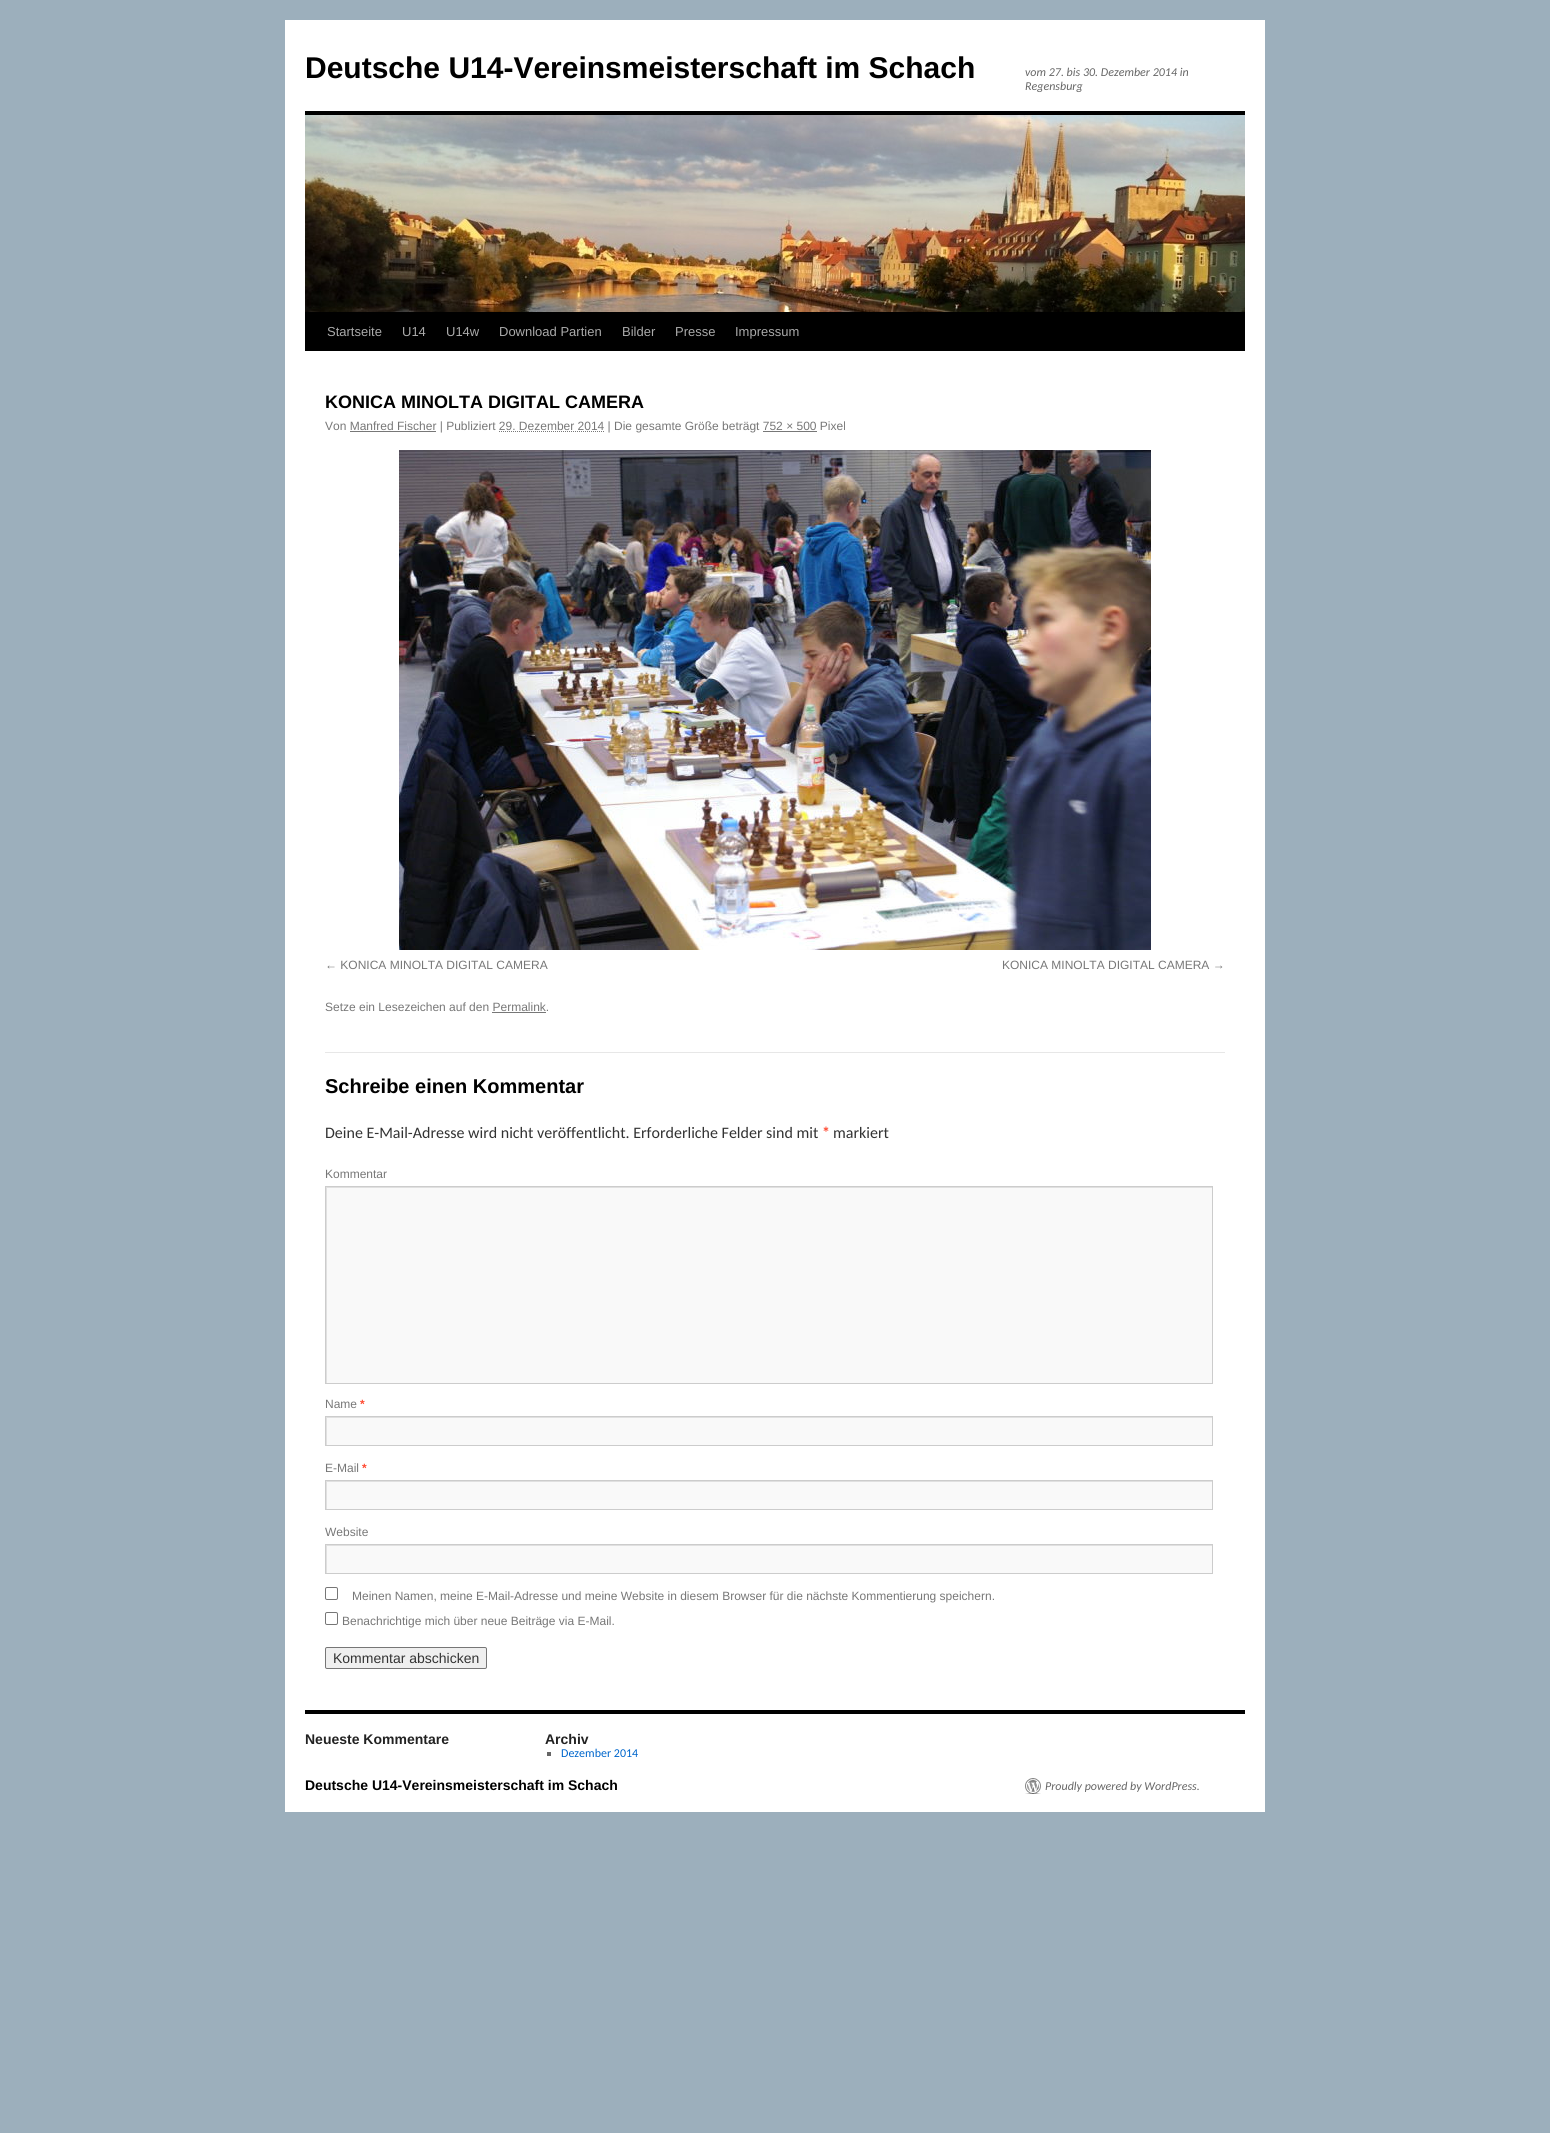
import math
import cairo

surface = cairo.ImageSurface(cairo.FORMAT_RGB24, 1550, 2133)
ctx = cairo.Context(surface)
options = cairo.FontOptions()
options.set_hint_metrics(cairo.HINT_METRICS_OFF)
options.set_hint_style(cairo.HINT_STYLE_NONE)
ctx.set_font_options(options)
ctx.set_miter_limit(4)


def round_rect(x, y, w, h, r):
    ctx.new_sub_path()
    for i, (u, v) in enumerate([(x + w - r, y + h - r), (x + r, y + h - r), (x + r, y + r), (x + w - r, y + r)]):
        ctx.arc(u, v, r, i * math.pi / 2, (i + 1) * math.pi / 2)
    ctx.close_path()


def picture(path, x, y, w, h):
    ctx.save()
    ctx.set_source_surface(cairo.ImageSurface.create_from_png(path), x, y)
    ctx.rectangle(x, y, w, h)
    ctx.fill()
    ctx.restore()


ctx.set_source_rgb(0.612, 0.686, 0.737)
ctx.paint()
ctx.set_source_rgb(1, 1, 1)
ctx.rectangle(285, 20, 980, 1792)
ctx.fill()
ctx.select_font_face("Liberation Sans", cairo.FONT_SLANT_NORMAL, cairo.FONT_WEIGHT_BOLD)
ctx.set_font_size(30)
ctx.set_source_rgb(0, 0, 0)
ctx.move_to(305, 78)
ctx.show_text("Deutsche U14-Vereinsmeisterschaft im Schach")
ctx.select_font_face("Carlito", cairo.FONT_SLANT_ITALIC)
ctx.set_font_size(12)
ctx.set_source_rgb(0.4, 0.4, 0.4)
ctx.move_to(1025, 76)
ctx.show_text("vom 27. bis 30. Dezember 2014 in")
ctx.move_to(1025, 90)
ctx.show_text("Regensburg")
ctx.set_source_rgb(0, 0, 0)
ctx.rectangle(305, 111, 940, 4)
ctx.fill()
ctx.rectangle(305, 312, 940, 39)
ctx.fill()
picture("img1.png", 305, 115, 940, 197)
ctx.select_font_face("Liberation Sans")
ctx.set_font_size(13)
ctx.set_source_rgb(0.667, 0.667, 0.667)
ctx.move_to(327, 336)
ctx.show_text("Startseite")
ctx.move_to(402, 336)
ctx.show_text("U14")
ctx.move_to(446, 336)
ctx.show_text("U14w")
ctx.move_to(499, 336)
ctx.show_text("Download Partien")
ctx.move_to(622, 336)
ctx.show_text("Bilder")
ctx.move_to(675, 336)
ctx.show_text("Presse")
ctx.move_to(735, 336)
ctx.show_text("Impressum")
ctx.select_font_face("Liberation Sans", cairo.FONT_SLANT_NORMAL, cairo.FONT_WEIGHT_BOLD)
ctx.set_font_size(18)
ctx.set_source_rgb(0, 0, 0)
ctx.move_to(325, 408)
ctx.show_text("KONICA MINOLTA DIGITAL CAMERA")
ctx.select_font_face("Liberation Sans")
ctx.set_font_size(12)
ctx.set_source_rgb(0.467, 0.467, 0.467)
ctx.move_to(325, 430)
ctx.show_text("Von Manfred Fischer | Publiziert 29. Dezember 2014 | Die gesamte Größe beträgt 752 × 500 Pixel")
ctx.rectangle(350, 431, 86, 1)
ctx.fill()
ctx.new_path()
ctx.move_to(499, 431.5)
ctx.line_to(604.5, 431.5)
ctx.set_line_width(1)
ctx.set_dash([1, 1])
ctx.stroke()
ctx.rectangle(763, 431, 54, 1)
ctx.fill()
picture("img2.png", 399, 450, 752, 500)
ctx.move_to(325, 969)
ctx.show_text("← KONICA MINOLTA DIGITAL CAMERA")
ctx.move_to(1002, 969)
ctx.show_text("KONICA MINOLTA DIGITAL CAMERA →")
ctx.move_to(325, 1011)
ctx.show_text("Setze ein Lesezeichen auf den Permalink.")
ctx.rectangle(492, 1012, 54, 1)
ctx.fill()
ctx.set_source_rgb(0.906, 0.906, 0.906)
ctx.rectangle(325, 1052, 900, 1)
ctx.fill()
ctx.select_font_face("Liberation Sans", cairo.FONT_SLANT_NORMAL, cairo.FONT_WEIGHT_BOLD)
ctx.set_font_size(20)
ctx.set_source_rgb(0, 0, 0)
ctx.move_to(325, 1093)
ctx.show_text("Schreibe einen Kommentar")
ctx.select_font_face("Carlito")
ctx.set_font_size(16)
ctx.set_source_rgb(0.2, 0.2, 0.2)
ctx.move_to(325, 1138)
ctx.show_text("Deine E-Mail-Adresse wird nicht veröffentlicht. Erforderliche Felder sind mit")
ctx.select_font_face("Carlito", cairo.FONT_SLANT_NORMAL, cairo.FONT_WEIGHT_BOLD)
ctx.set_source_rgb(1, 0.294, 0.2)
ctx.move_to(822, 1138)
ctx.show_text("*")
ctx.select_font_face("Carlito")
ctx.set_source_rgb(0.2, 0.2, 0.2)
ctx.move_to(833, 1138)
ctx.show_text("markiert")
ctx.select_font_face("Liberation Sans")
ctx.set_font_size(12)
ctx.set_source_rgb(0.467, 0.467, 0.467)
ctx.move_to(325, 1178)
ctx.show_text("Kommentar")
ctx.set_source_rgb(0.976, 0.976, 0.976)
ctx.rectangle(327, 1188, 885, 195)
ctx.fill()
ctx.save()
ctx.rectangle(326, 1187, 886, 196)
ctx.clip()
ctx.set_source_rgb(0.878, 0.878, 0.878)
ctx.set_fill_rule(cairo.FILL_RULE_EVEN_ODD)
ctx.new_path()
ctx.move_to(227, 1088)
ctx.line_to(1311, 1088)
ctx.line_to(1311, 1482)
ctx.line_to(227, 1482)
ctx.close_path()
ctx.move_to(327, 1188)
ctx.line_to(1213, 1188)
ctx.line_to(1213, 1384)
ctx.line_to(327, 1384)
ctx.close_path()
ctx.fill()
ctx.restore()
ctx.rectangle(325.5, 1186.5, 887, 197)
ctx.set_source_rgb(0.8, 0.8, 0.8)
ctx.set_dash([])
ctx.stroke()
ctx.set_source_rgb(0.467, 0.467, 0.467)
ctx.move_to(325, 1408)
ctx.show_text("Name")
ctx.select_font_face("Liberation Sans", cairo.FONT_SLANT_NORMAL, cairo.FONT_WEIGHT_BOLD)
ctx.set_source_rgb(1, 0.294, 0.2)
ctx.move_to(360, 1408)
ctx.show_text("*")
ctx.set_source_rgb(0.976, 0.976, 0.976)
ctx.rectangle(327, 1418, 885, 27)
ctx.fill()
ctx.save()
ctx.rectangle(326, 1417, 886, 28)
ctx.clip()
ctx.set_source_rgb(0.878, 0.878, 0.878)
ctx.set_fill_rule(cairo.FILL_RULE_EVEN_ODD)
ctx.new_path()
ctx.move_to(227, 1318)
ctx.line_to(1311, 1318)
ctx.line_to(1311, 1544)
ctx.line_to(227, 1544)
ctx.close_path()
ctx.move_to(327, 1418)
ctx.line_to(1213, 1418)
ctx.line_to(1213, 1446)
ctx.line_to(327, 1446)
ctx.close_path()
ctx.fill()
ctx.restore()
ctx.rectangle(325.5, 1416.5, 887, 29)
ctx.set_source_rgb(0.8, 0.8, 0.8)
ctx.stroke()
ctx.select_font_face("Liberation Sans")
ctx.set_source_rgb(0.467, 0.467, 0.467)
ctx.move_to(325, 1472)
ctx.show_text("E-Mail")
ctx.select_font_face("Liberation Sans", cairo.FONT_SLANT_NORMAL, cairo.FONT_WEIGHT_BOLD)
ctx.set_source_rgb(1, 0.294, 0.2)
ctx.move_to(362, 1472)
ctx.show_text("*")
ctx.set_source_rgb(0.976, 0.976, 0.976)
ctx.rectangle(327, 1482, 885, 27)
ctx.fill()
ctx.save()
ctx.rectangle(326, 1481, 886, 28)
ctx.clip()
ctx.set_source_rgb(0.878, 0.878, 0.878)
ctx.set_fill_rule(cairo.FILL_RULE_EVEN_ODD)
ctx.new_path()
ctx.move_to(227, 1382)
ctx.line_to(1311, 1382)
ctx.line_to(1311, 1608)
ctx.line_to(227, 1608)
ctx.close_path()
ctx.move_to(327, 1482)
ctx.line_to(1213, 1482)
ctx.line_to(1213, 1510)
ctx.line_to(327, 1510)
ctx.close_path()
ctx.fill()
ctx.restore()
ctx.rectangle(325.5, 1480.5, 887, 29)
ctx.set_source_rgb(0.8, 0.8, 0.8)
ctx.stroke()
ctx.select_font_face("Liberation Sans")
ctx.set_source_rgb(0.467, 0.467, 0.467)
ctx.move_to(325, 1536)
ctx.show_text("Website")
ctx.set_source_rgb(0.976, 0.976, 0.976)
ctx.rectangle(327, 1546, 885, 27)
ctx.fill()
ctx.save()
ctx.rectangle(326, 1545, 886, 28)
ctx.clip()
ctx.set_source_rgb(0.878, 0.878, 0.878)
ctx.set_fill_rule(cairo.FILL_RULE_EVEN_ODD)
ctx.new_path()
ctx.move_to(227, 1446)
ctx.line_to(1311, 1446)
ctx.line_to(1311, 1672)
ctx.line_to(227, 1672)
ctx.close_path()
ctx.move_to(327, 1546)
ctx.line_to(1213, 1546)
ctx.line_to(1213, 1574)
ctx.line_to(327, 1574)
ctx.close_path()
ctx.fill()
ctx.restore()
ctx.rectangle(325.5, 1544.5, 887, 29)
ctx.set_source_rgb(0.8, 0.8, 0.8)
ctx.stroke()
round_rect(325.5, 1587.5, 12, 12, 1.5)
ctx.set_source_rgb(0.463, 0.463, 0.463)
ctx.stroke()
ctx.set_source_rgb(0.467, 0.467, 0.467)
ctx.move_to(352, 1600)
ctx.show_text("Meinen Namen, meine E-Mail-Adresse und meine Website in diesem Browser für die nächste Kommentierung speichern.")
round_rect(325.5, 1612.5, 12, 12, 1.5)
ctx.set_source_rgb(0.463, 0.463, 0.463)
ctx.stroke()
ctx.set_source_rgb(0.467, 0.467, 0.467)
ctx.move_to(342, 1625)
ctx.show_text("Benachrichtige mich über neue Beiträge via E-Mail.")
ctx.set_source_rgb(0.937, 0.937, 0.937)
round_rect(325.5, 1647.5, 161, 21, 1.5)
ctx.fill_preserve()
ctx.set_source_rgb(0.463, 0.463, 0.463)
ctx.stroke()
ctx.set_font_size(14)
ctx.set_source_rgb(0.2, 0.2, 0.2)
ctx.move_to(333, 1663)
ctx.show_text("Kommentar abschicken")
ctx.set_source_rgb(0, 0, 0)
ctx.rectangle(305, 1710, 940, 4)
ctx.fill()
ctx.select_font_face("Liberation Sans", cairo.FONT_SLANT_NORMAL, cairo.FONT_WEIGHT_BOLD)
ctx.set_source_rgb(0.133, 0.133, 0.133)
ctx.move_to(305, 1744)
ctx.show_text("Neueste Kommentare")
ctx.move_to(545, 1744)
ctx.show_text("Archiv")
ctx.set_source_rgb(0.4, 0.4, 0.4)
ctx.rectangle(547, 1752, 4, 4)
ctx.fill()
ctx.select_font_face("Carlito")
ctx.set_font_size(12)
ctx.set_source_rgb(0, 0.4, 0.8)
ctx.move_to(561, 1757)
ctx.show_text("Dezember 2014")
ctx.select_font_face("Liberation Sans", cairo.FONT_SLANT_NORMAL, cairo.FONT_WEIGHT_BOLD)
ctx.set_font_size(14)
ctx.set_source_rgb(0, 0, 0)
ctx.move_to(305, 1790)
ctx.show_text("Deutsche U14-Vereinsmeisterschaft im Schach")
picture("img3.png", 1025, 1778, 16, 16)
ctx.select_font_face("Carlito", cairo.FONT_SLANT_ITALIC)
ctx.set_font_size(12)
ctx.set_source_rgb(0.4, 0.4, 0.4)
ctx.move_to(1045, 1790)
ctx.show_text("Proudly powered by WordPress.")
surface.write_to_png("page.png")
